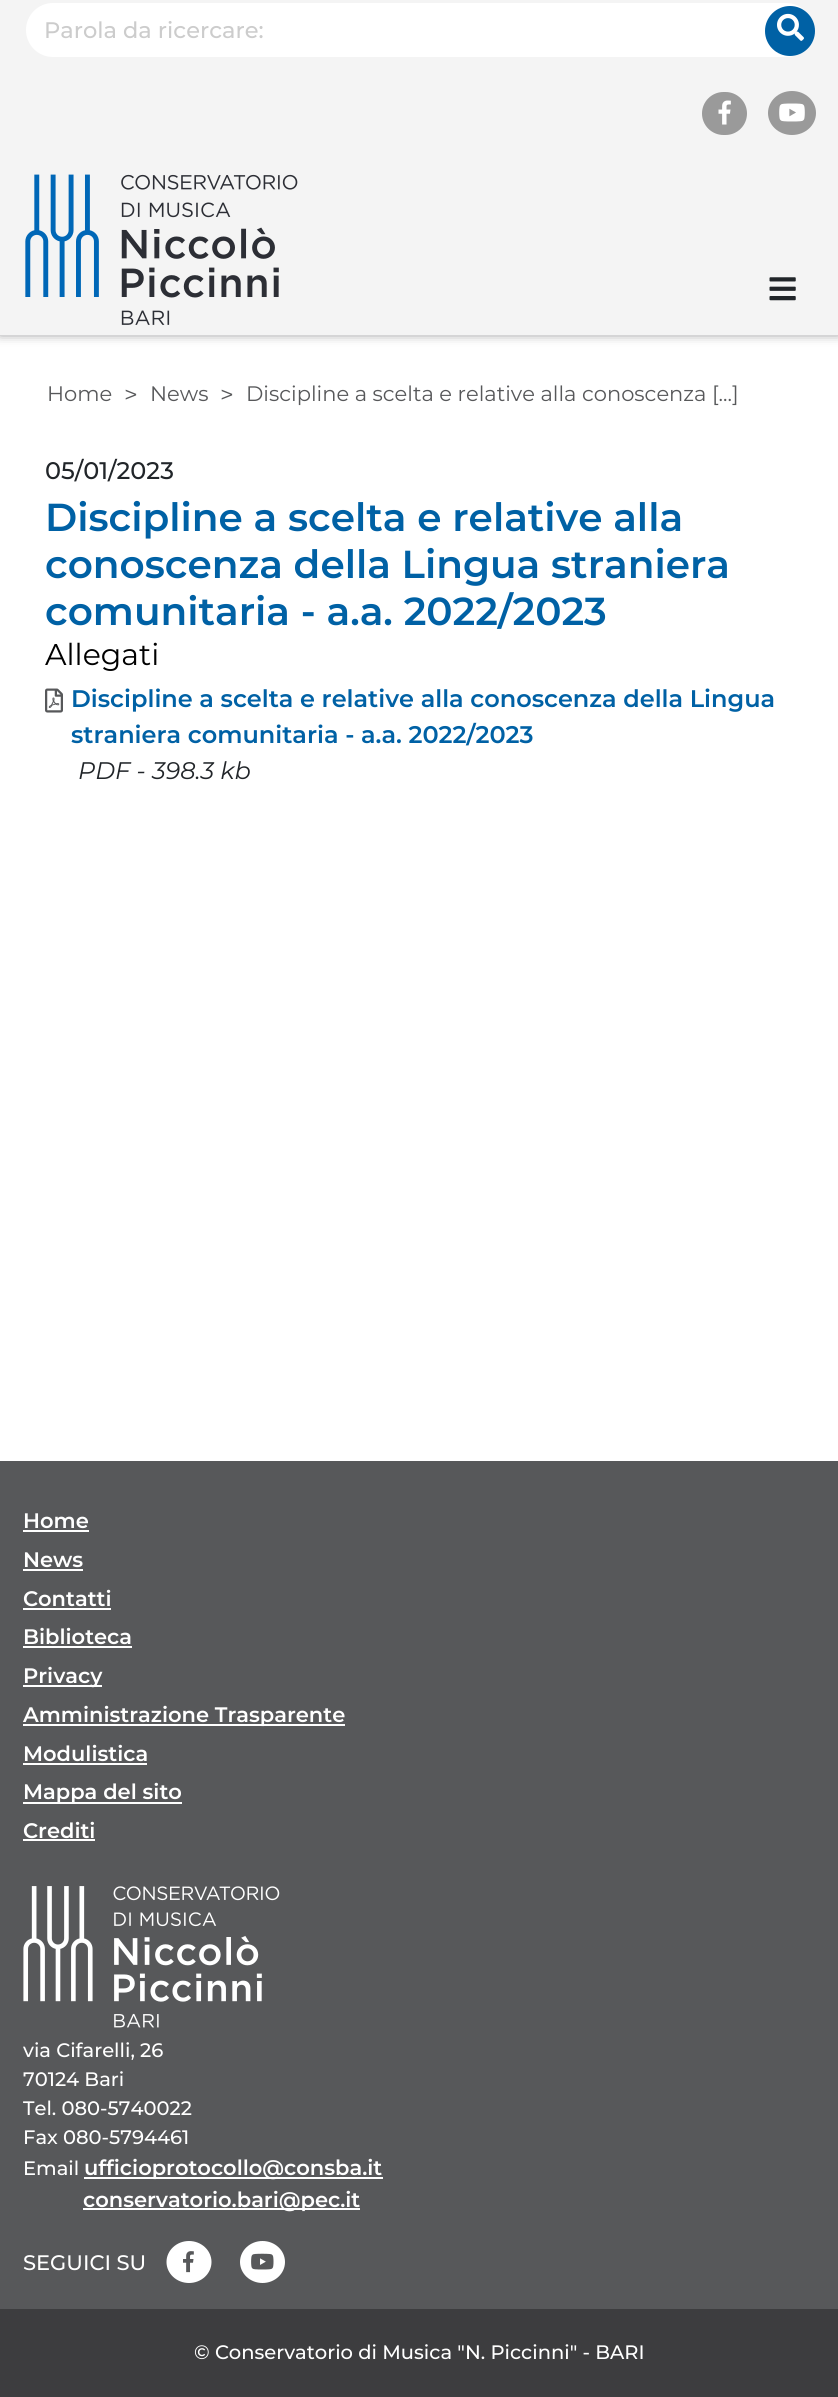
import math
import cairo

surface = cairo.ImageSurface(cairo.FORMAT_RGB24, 838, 2397)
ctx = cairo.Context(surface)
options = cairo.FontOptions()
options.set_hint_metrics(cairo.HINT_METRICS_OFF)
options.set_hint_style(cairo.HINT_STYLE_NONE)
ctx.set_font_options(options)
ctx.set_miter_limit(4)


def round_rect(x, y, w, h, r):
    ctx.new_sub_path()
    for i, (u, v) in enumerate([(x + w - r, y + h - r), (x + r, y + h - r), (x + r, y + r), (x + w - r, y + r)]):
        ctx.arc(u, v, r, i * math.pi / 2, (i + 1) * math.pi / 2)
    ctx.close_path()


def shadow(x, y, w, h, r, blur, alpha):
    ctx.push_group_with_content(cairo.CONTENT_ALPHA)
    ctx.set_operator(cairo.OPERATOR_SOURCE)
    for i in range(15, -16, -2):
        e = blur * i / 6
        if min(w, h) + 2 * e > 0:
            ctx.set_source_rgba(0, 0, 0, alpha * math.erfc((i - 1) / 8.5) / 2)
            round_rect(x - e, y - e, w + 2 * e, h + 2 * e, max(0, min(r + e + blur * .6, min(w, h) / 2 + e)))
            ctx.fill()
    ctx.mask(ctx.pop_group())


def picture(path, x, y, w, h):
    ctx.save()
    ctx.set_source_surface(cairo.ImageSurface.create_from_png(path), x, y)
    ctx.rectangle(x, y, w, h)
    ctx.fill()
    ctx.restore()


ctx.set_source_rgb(1, 1, 1)
ctx.paint()
ctx.set_source_rgb(0.341, 0.345, 0.353)
shadow(0, -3, 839, 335, 0, 6, 1)
ctx.set_source_rgb(0.957, 0.957, 0.957)
ctx.rectangle(0, 0, 838, 335)
ctx.fill()
ctx.set_source_rgb(1, 1, 1)
round_rect(24.5, 1.5, 790, 57, 28.5)
ctx.fill_preserve()
ctx.set_source_rgb(0.957, 0.957, 0.957)
ctx.set_line_width(3)
ctx.stroke()
ctx.select_font_face("Montserrat Medium")
ctx.set_font_size(22.5)
ctx.set_source_rgb(0.8, 0.8, 0.8)
ctx.move_to(44, 38)
ctx.show_text("Parola da ricercare:")
ctx.set_source_rgb(0, 0.38, 0.647)
ctx.new_path()
ctx.arc(790, 31, 25, 0, 2 * math.pi)
ctx.fill()
picture("img1.png", 777, 13, 27, 28)
ctx.set_source_rgb(0.604, 0.604, 0.604)
round_rect(702, 92, 45, 43, 21.5)
ctx.fill()
picture("img2.png", 718, 100, 13, 25)
ctx.new_path()
ctx.move_to(792, 91)
ctx.curve_to(805.5, 91, 816, 101, 816, 113)
ctx.curve_to(816, 125, 805.5, 135, 792, 135)
ctx.curve_to(778.5, 135, 768, 125, 768, 113)
ctx.curve_to(768, 101, 778.5, 91, 792, 91)
ctx.close_path()
ctx.fill()
picture("img3.png", 779, 103, 26, 19)
picture("img4.png", 25, 174, 273, 151)
picture("img5.png", 769, 277, 27, 24)
ctx.select_font_face("Montserrat")
ctx.set_font_size(21)
ctx.set_source_rgb(0.341, 0.345, 0.353)
ctx.move_to(47, 401)
ctx.show_text("Home")
ctx.set_font_size(24)
ctx.move_to(124, 403)
ctx.show_text(">")
ctx.set_font_size(21)
ctx.move_to(150, 401)
ctx.show_text("News")
ctx.set_font_size(24)
ctx.move_to(220, 403)
ctx.show_text(">")
ctx.set_font_size(21)
ctx.move_to(246, 401)
ctx.show_text("Discipline a scelta e relative alla conoscenza [...]")
ctx.select_font_face("Montserrat Medium")
ctx.set_font_size(24)
ctx.set_source_rgb(0.129, 0.145, 0.161)
ctx.move_to(45, 479)
ctx.show_text("05/01/2023")
ctx.select_font_face("Montserrat SemiBold")
ctx.set_font_size(39)
ctx.set_source_rgb(0, 0.38, 0.647)
ctx.move_to(45, 531)
ctx.show_text("Discipline a scelta e relative alla")
ctx.move_to(45, 578)
ctx.show_text("conoscenza della Lingua straniera")
ctx.move_to(45, 625)
ctx.show_text("comunitaria - a.a. 2022/2023")
ctx.select_font_face("Montserrat")
ctx.set_font_size(30)
ctx.set_source_rgb(0, 0, 0)
ctx.move_to(45, 665)
ctx.show_text("Allegati")
picture("img6.png", 45, 688, 18, 25)
ctx.select_font_face("Montserrat SemiBold")
ctx.set_font_size(24)
ctx.set_source_rgb(0, 0.38, 0.647)
ctx.move_to(71, 707)
ctx.show_text("Discipline a scelta e relative alla conoscenza della Lingua")
ctx.move_to(71, 743)
ctx.show_text("straniera comunitaria - a.a. 2022/2023")
ctx.select_font_face("Montserrat Thin", cairo.FONT_SLANT_ITALIC)
ctx.set_source_rgb(0.129, 0.145, 0.161)
ctx.move_to(78, 779)
ctx.show_text("PDF - 398.3 kb")
ctx.set_source_rgb(0.341, 0.345, 0.353)
ctx.rectangle(0, 1461, 838, 848)
ctx.fill()
ctx.select_font_face("Montserrat SemiBold")
ctx.set_font_size(21)
ctx.set_source_rgb(1, 1, 1)
ctx.move_to(23, 1528)
ctx.show_text("Home")
ctx.rectangle(23, 1530, 66, 2)
ctx.fill()
ctx.move_to(23, 1567)
ctx.show_text("News")
ctx.rectangle(23, 1569, 60, 2)
ctx.fill()
ctx.move_to(23, 1606)
ctx.show_text("Contatti")
ctx.rectangle(23, 1608, 88, 2)
ctx.fill()
ctx.move_to(23, 1644)
ctx.show_text("Biblioteca")
ctx.rectangle(23, 1646, 109, 2)
ctx.fill()
ctx.rectangle(23, 1685, 79, 2)
ctx.fill()
ctx.move_to(23, 1683)
ctx.show_text("Privacy")
ctx.rectangle(23, 1724, 322, 2)
ctx.fill()
ctx.move_to(23, 1722)
ctx.show_text("Amministrazione Trasparente")
ctx.move_to(23, 1761)
ctx.show_text("Modulistica")
ctx.rectangle(23, 1763, 124, 2)
ctx.fill()
ctx.rectangle(23, 1802, 159, 2)
ctx.fill()
ctx.move_to(23, 1799)
ctx.show_text("Mappa del sito")
ctx.move_to(23, 1838)
ctx.show_text("Crediti")
ctx.rectangle(23, 1839, 72, 2)
ctx.fill()
picture("img7.png", 23, 1886, 257, 142)
ctx.select_font_face("Montserrat Medium")
ctx.set_font_size(19.5)
ctx.move_to(23, 2057)
ctx.show_text("via Cifarelli, 26")
ctx.move_to(23, 2086)
ctx.show_text("70124 Bari")
ctx.move_to(23, 2115)
ctx.show_text("Tel. 080-5740022")
ctx.move_to(23, 2144)
ctx.show_text("Fax 080-5794461")
ctx.move_to(23, 2175)
ctx.show_text("Email")
ctx.rectangle(84, 2177, 299, 2)
ctx.fill()
ctx.select_font_face("Montserrat SemiBold")
ctx.set_font_size(21)
ctx.move_to(84, 2175)
ctx.show_text("ufficioprotocollo@consba.it")
ctx.rectangle(83, 2208, 277, 2)
ctx.fill()
ctx.move_to(83, 2207)
ctx.show_text("conservatorio.bari@pec.it")
ctx.select_font_face("Montserrat Medium")
ctx.move_to(23, 2270)
ctx.show_text("SEGUICI SU")
ctx.new_path()
ctx.move_to(189, 2241)
ctx.curve_to(201.5, 2241, 211.5, 2250.5, 211.5, 2262)
ctx.curve_to(211.5, 2273.5, 201.5, 2283, 189, 2283)
ctx.curve_to(176.5, 2283, 166.5, 2273.5, 166.5, 2262)
ctx.curve_to(166.5, 2250.5, 176.5, 2241, 189, 2241)
ctx.close_path()
ctx.fill()
picture("img8.png", 183, 2251, 11, 22)
ctx.new_path()
ctx.move_to(262.5, 2241)
ctx.curve_to(275, 2241, 285, 2250.5, 285, 2262)
ctx.curve_to(285, 2273.5, 275, 2283, 262.5, 2283)
ctx.curve_to(250, 2283, 240, 2273.5, 240, 2262)
ctx.curve_to(240, 2250.5, 250, 2241, 262.5, 2241)
ctx.close_path()
ctx.fill()
picture("img9.png", 251, 2253, 23, 17)
ctx.set_source_rgb(0.239, 0.239, 0.247)
ctx.rectangle(0, 2309, 838, 88)
ctx.fill()
ctx.set_font_size(19.5)
ctx.set_source_rgb(1, 1, 1)
ctx.move_to(194, 2359)
ctx.show_text("© Conservatorio di Musica \"N. Piccinni\" - BARI")
surface.write_to_png("page.png")
